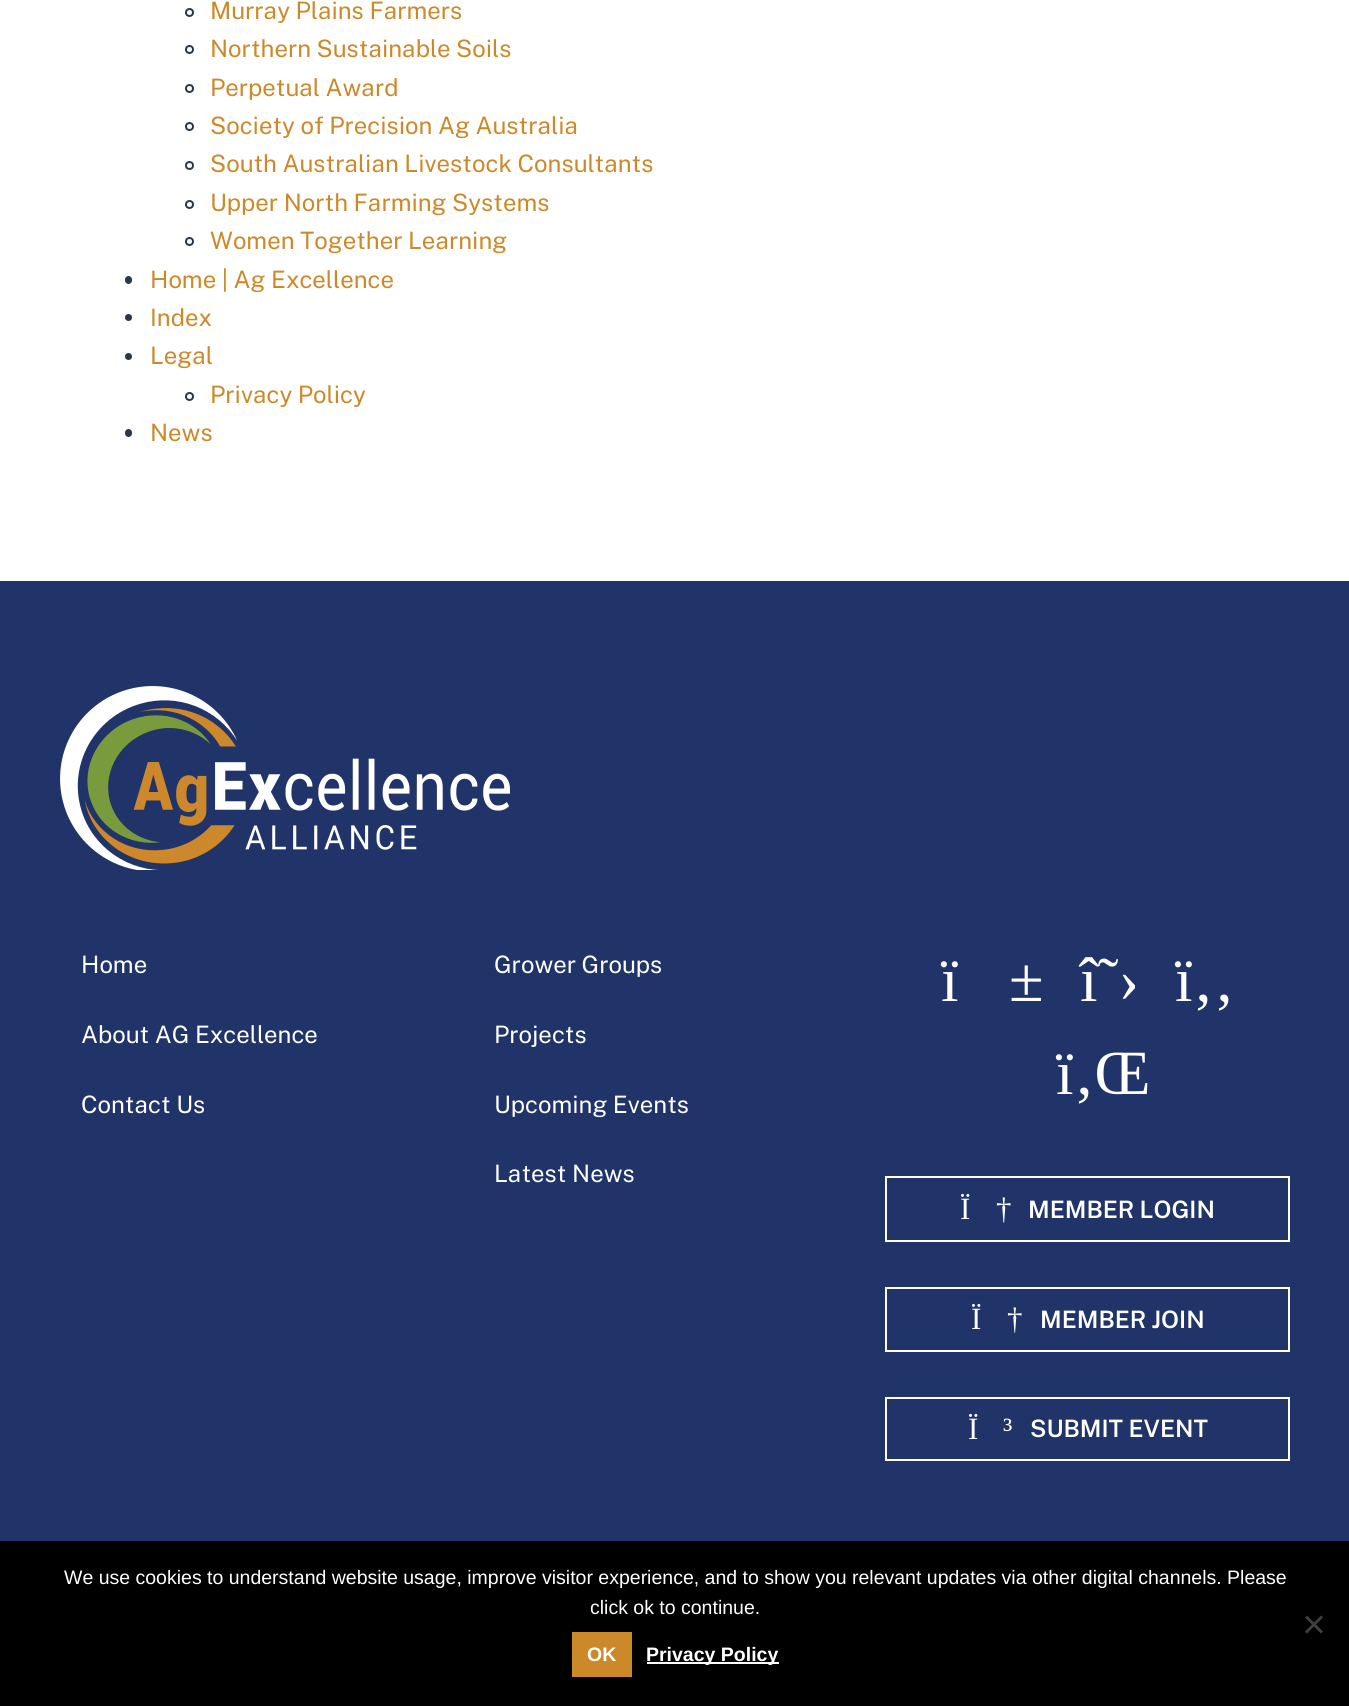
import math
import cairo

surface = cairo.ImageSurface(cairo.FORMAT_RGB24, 1349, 1706)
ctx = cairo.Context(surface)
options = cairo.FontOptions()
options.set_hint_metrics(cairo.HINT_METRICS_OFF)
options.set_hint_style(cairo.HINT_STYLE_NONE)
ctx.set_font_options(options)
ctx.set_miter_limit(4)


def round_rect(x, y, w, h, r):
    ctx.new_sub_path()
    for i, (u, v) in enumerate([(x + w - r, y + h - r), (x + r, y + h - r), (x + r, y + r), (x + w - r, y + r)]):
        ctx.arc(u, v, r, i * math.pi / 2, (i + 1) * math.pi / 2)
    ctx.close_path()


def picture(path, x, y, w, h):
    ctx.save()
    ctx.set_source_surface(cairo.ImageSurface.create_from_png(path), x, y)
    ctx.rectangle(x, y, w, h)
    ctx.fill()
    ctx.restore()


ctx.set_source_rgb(1, 1, 1)
ctx.paint()
ctx.arc(189.5, 12.5, 3.5, 0, 2 * math.pi)
ctx.set_source_rgb(0.165, 0.224, 0.29)
ctx.stroke()
ctx.select_font_face("Public Sans")
ctx.set_font_size(24)
ctx.set_source_rgb(0.8, 0.537, 0.161)
ctx.move_to(210, 19)
ctx.show_text("Murray Plains Farmers")
ctx.new_path()
ctx.arc(189.5, 49.5, 3.5, 0, 2 * math.pi)
ctx.set_source_rgb(0.165, 0.224, 0.29)
ctx.stroke()
ctx.set_source_rgb(0.8, 0.537, 0.161)
ctx.move_to(210, 57)
ctx.show_text("Northern Sustainable Soils")
ctx.new_path()
ctx.arc(189.5, 88.5, 3.5, 0, 2 * math.pi)
ctx.set_source_rgb(0.165, 0.224, 0.29)
ctx.stroke()
ctx.set_source_rgb(0.8, 0.537, 0.161)
ctx.move_to(210, 96)
ctx.show_text("Perpetual Award")
ctx.new_path()
ctx.arc(189.5, 126.5, 3.5, 0, 2 * math.pi)
ctx.set_source_rgb(0.165, 0.224, 0.29)
ctx.stroke()
ctx.set_source_rgb(0.8, 0.537, 0.161)
ctx.move_to(210, 134)
ctx.show_text("Society of Precision Ag Australia")
ctx.new_path()
ctx.arc(189.5, 165.5, 3.5, 0, 2 * math.pi)
ctx.set_source_rgb(0.165, 0.224, 0.29)
ctx.stroke()
ctx.set_source_rgb(0.8, 0.537, 0.161)
ctx.move_to(210, 172)
ctx.show_text("South Australian Livestock Consultants")
ctx.new_path()
ctx.arc(189.5, 204.5, 3.5, 0, 2 * math.pi)
ctx.set_source_rgb(0.165, 0.224, 0.29)
ctx.stroke()
ctx.set_source_rgb(0.8, 0.537, 0.161)
ctx.move_to(210, 211)
ctx.show_text("Upper North Farming Systems")
ctx.new_path()
ctx.arc(189.5, 241.5, 3.5, 0, 2 * math.pi)
ctx.set_source_rgb(0.165, 0.224, 0.29)
ctx.stroke()
ctx.set_source_rgb(0.8, 0.537, 0.161)
ctx.move_to(210, 249)
ctx.show_text("Women Together Learning")
ctx.set_source_rgb(0.165, 0.224, 0.29)
round_rect(125, 276, 7, 8, 3.5)
ctx.fill()
ctx.set_source_rgb(0.8, 0.537, 0.161)
ctx.move_to(150, 288)
ctx.show_text("Home | Ag Excellence")
ctx.set_source_rgb(0.165, 0.224, 0.29)
ctx.new_path()
ctx.arc(128.5, 317.5, 3.5, 0, 2 * math.pi)
ctx.fill()
ctx.set_source_rgb(0.8, 0.537, 0.161)
ctx.move_to(150, 326)
ctx.show_text("Index")
ctx.set_source_rgb(0.165, 0.224, 0.29)
ctx.new_path()
ctx.arc(128.5, 356.5, 3.5, 0, 2 * math.pi)
ctx.fill()
ctx.set_source_rgb(0.8, 0.537, 0.161)
ctx.move_to(150, 364)
ctx.show_text("Legal")
ctx.new_path()
ctx.arc(189.5, 396.5, 3.5, 0, 2 * math.pi)
ctx.set_source_rgb(0.165, 0.224, 0.29)
ctx.stroke()
ctx.set_source_rgb(0.8, 0.537, 0.161)
ctx.move_to(210, 403)
ctx.show_text("Privacy Policy")
ctx.set_source_rgb(0.165, 0.224, 0.29)
round_rect(125, 429, 7, 8, 3.5)
ctx.fill()
ctx.set_source_rgb(0.8, 0.537, 0.161)
ctx.move_to(150, 441)
ctx.show_text("News")
ctx.set_source_rgb(0.129, 0.204, 0.412)
ctx.rectangle(0, 581, 1349, 960)
ctx.fill()
picture("img1.png", 60, 686, 450, 184)
ctx.set_source_rgb(1, 1, 1)
ctx.move_to(81, 973)
ctx.show_text("Home")
ctx.move_to(81, 1043)
ctx.show_text("About AG Excellence")
ctx.move_to(81, 1113)
ctx.show_text("Contact Us")
ctx.move_to(494, 973)
ctx.show_text("Grower Groups")
ctx.move_to(494, 1043)
ctx.show_text("Projects")
ctx.move_to(494, 1113)
ctx.show_text("Upcoming Events")
ctx.move_to(494, 1182)
ctx.show_text("Latest News")
ctx.select_font_face("Liberation Serif")
ctx.set_font_size(63)
ctx.move_to(941, 1001)
ctx.show_text("ï")
ctx.move_to(1009, 1001)
ctx.show_text("±")
ctx.move_to(1080, 1001)
ctx.show_text("î˜›")
ctx.move_to(1175, 1001)
ctx.show_text("ï‚‚")
ctx.move_to(1056, 1094)
ctx.show_text("ï‚Œ")
ctx.rectangle(886, 1177, 403, 64)
ctx.stroke()
ctx.set_font_size(31)
ctx.move_to(960, 1219)
ctx.show_text("Ï")
ctx.move_to(996, 1219)
ctx.show_text("†")
ctx.select_font_face("Public Sans SemiBold")
ctx.set_font_size(24)
ctx.move_to(1028, 1218)
ctx.show_text("MEMBER LOGIN")
ctx.rectangle(886, 1288, 403, 63)
ctx.stroke()
ctx.select_font_face("Liberation Serif")
ctx.set_font_size(31)
ctx.move_to(971, 1329)
ctx.show_text("Ï")
ctx.move_to(1007, 1329)
ctx.show_text("†")
ctx.select_font_face("Public Sans SemiBold")
ctx.set_font_size(24)
ctx.move_to(1040, 1328)
ctx.show_text("MEMBER JOIN")
ctx.rectangle(886, 1398, 403, 62)
ctx.stroke()
ctx.select_font_face("Liberation Serif")
ctx.set_font_size(31)
ctx.move_to(968, 1439)
ctx.show_text("Ï")
ctx.move_to(1003, 1439)
ctx.show_text("³")
ctx.select_font_face("Public Sans SemiBold")
ctx.set_font_size(24)
ctx.move_to(1030, 1437)
ctx.show_text("SUBMIT EVENT")
ctx.set_source_rgb(0, 0, 0)
ctx.rectangle(0, 1541, 1349, 165)
ctx.fill()
ctx.select_font_face("Liberation Sans")
ctx.set_font_size(19.5)
ctx.set_source_rgb(1, 1, 1)
ctx.move_to(64, 1584)
ctx.show_text("We use cookies to understand website usage, improve visitor experience, and to show you relevant updates via other digital channels. Please")
ctx.move_to(590, 1614)
ctx.show_text("click ok to continue.")
ctx.set_source_rgb(0.251, 0.251, 0.251)
ctx.new_path()
ctx.move_to(1321, 1615.5)
ctx.line_to(1323, 1617.5)
ctx.line_to(1307, 1633.5)
ctx.line_to(1305, 1631.5)
ctx.close_path()
ctx.fill()
ctx.new_path()
ctx.move_to(1305, 1617.5)
ctx.line_to(1307, 1615.5)
ctx.line_to(1323, 1631.5)
ctx.line_to(1321, 1633.5)
ctx.close_path()
ctx.fill()
ctx.set_source_rgb(0.8, 0.537, 0.161)
ctx.rectangle(572, 1632, 60, 45)
ctx.fill()
ctx.select_font_face("Liberation Sans", cairo.FONT_SLANT_NORMAL, cairo.FONT_WEIGHT_BOLD)
ctx.set_source_rgb(1, 1, 1)
ctx.move_to(587, 1661)
ctx.show_text("OK")
ctx.rectangle(647, 1662, 132, 2)
ctx.fill()
ctx.move_to(646, 1661)
ctx.show_text("Privacy Policy")
surface.write_to_png("page.png")
